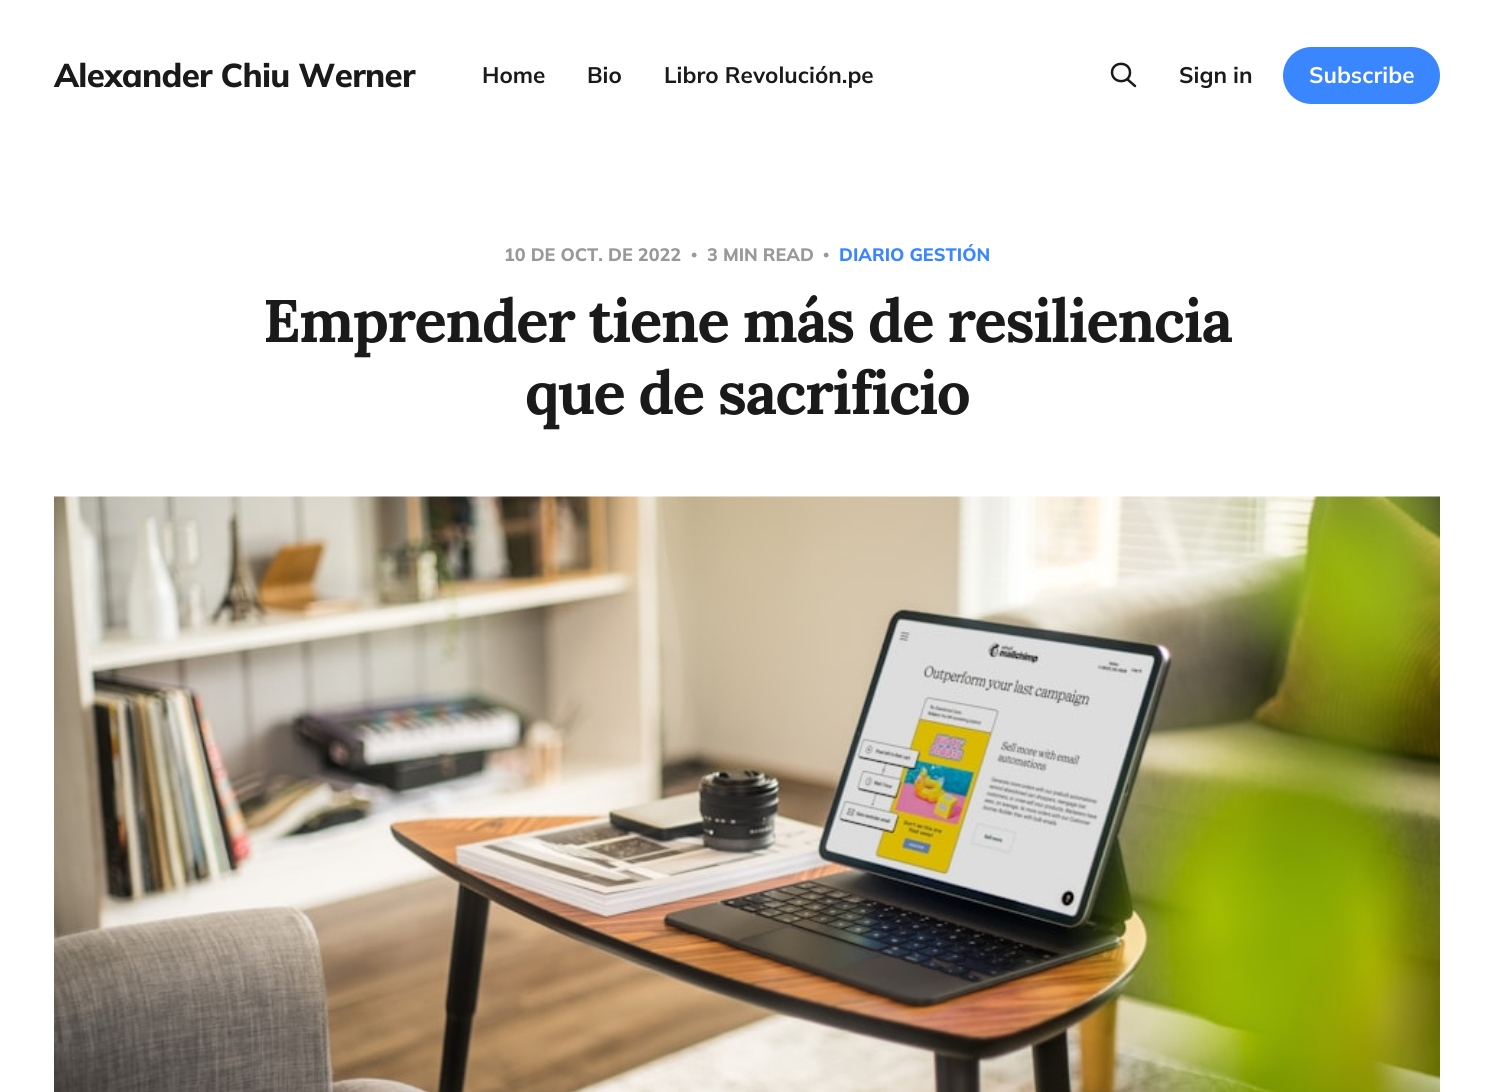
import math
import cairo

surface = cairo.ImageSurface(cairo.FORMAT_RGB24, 1494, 1092)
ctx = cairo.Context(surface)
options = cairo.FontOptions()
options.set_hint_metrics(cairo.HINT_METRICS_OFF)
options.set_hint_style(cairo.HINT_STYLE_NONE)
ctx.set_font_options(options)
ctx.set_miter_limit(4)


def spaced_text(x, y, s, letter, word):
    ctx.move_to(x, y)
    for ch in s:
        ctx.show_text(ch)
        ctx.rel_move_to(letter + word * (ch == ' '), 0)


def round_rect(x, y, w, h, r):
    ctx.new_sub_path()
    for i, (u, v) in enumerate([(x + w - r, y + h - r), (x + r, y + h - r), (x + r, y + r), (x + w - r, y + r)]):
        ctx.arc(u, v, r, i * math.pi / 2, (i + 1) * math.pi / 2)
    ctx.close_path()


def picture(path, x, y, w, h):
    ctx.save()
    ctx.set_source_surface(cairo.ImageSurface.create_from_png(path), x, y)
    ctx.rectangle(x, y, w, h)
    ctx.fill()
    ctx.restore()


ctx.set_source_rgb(1, 1, 1)
ctx.paint()
ctx.select_font_face("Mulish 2 ExtraLight")
ctx.set_font_size(33)
ctx.set_source_rgb(0.102, 0.102, 0.102)
spaced_text(54, 87, "Alexander Chiu Werner", -0.7, 0)
ctx.select_font_face("Mulish ExtraLight")
ctx.set_font_size(22.5)
ctx.move_to(482, 83)
ctx.show_text("Home")
ctx.move_to(587, 83)
ctx.show_text("Bio")
ctx.move_to(664, 83)
ctx.show_text("Libro Revolución.pe")
ctx.new_path()
ctx.move_to(1135, 86)
ctx.line_to(1127, 79)
ctx.move_to(1130, 72.5)
ctx.curve_to(1130, 84, 1112.5, 84, 1112, 72.5)
ctx.curve_to(1112, 61, 1130, 61, 1130, 72.5)
ctx.close_path()
ctx.set_line_width(2.5)
ctx.set_line_cap(cairo.LINE_CAP_ROUND)
ctx.set_line_join(cairo.LINE_JOIN_ROUND)
ctx.stroke()
ctx.move_to(1179, 83)
ctx.show_text("Sign in")
ctx.set_source_rgb(0.227, 0.525, 1)
round_rect(1283, 47, 157, 57, 28.5)
ctx.fill()
ctx.set_source_rgb(1, 1, 1)
ctx.move_to(1309, 83)
ctx.show_text("Subscribe")
ctx.select_font_face("Mulish 2 ExtraLight")
ctx.set_font_size(18)
ctx.set_source_rgb(0.6, 0.6, 0.6)
ctx.move_to(504, 261)
ctx.show_text("10 DE OCT. DE 2022")
ctx.select_font_face("Liberation Serif", cairo.FONT_SLANT_NORMAL, cairo.FONT_WEIGHT_BOLD)
ctx.move_to(691, 261)
ctx.show_text("•")
ctx.select_font_face("Mulish 2 ExtraLight")
ctx.move_to(707, 261)
ctx.show_text("3 MIN READ")
ctx.select_font_face("Liberation Serif", cairo.FONT_SLANT_NORMAL, cairo.FONT_WEIGHT_BOLD)
ctx.move_to(823, 261)
ctx.show_text("•")
ctx.select_font_face("Mulish 2 ExtraLight")
ctx.set_source_rgb(0.227, 0.525, 1)
ctx.move_to(839, 261)
ctx.show_text("DIARIO GESTIÓN")
ctx.select_font_face("Lora", cairo.FONT_SLANT_NORMAL, cairo.FONT_WEIGHT_BOLD)
ctx.set_font_size(60)
ctx.set_source_rgb(0.102, 0.102, 0.102)
spaced_text(263, 342, "Emprender tiene más de resiliencia", -1.5, 0)
spaced_text(525, 414, "que de sacrificio", -1.5, 0)
picture("img1.png", 54, 496, 1386, 596)
surface.write_to_png("page.png")
